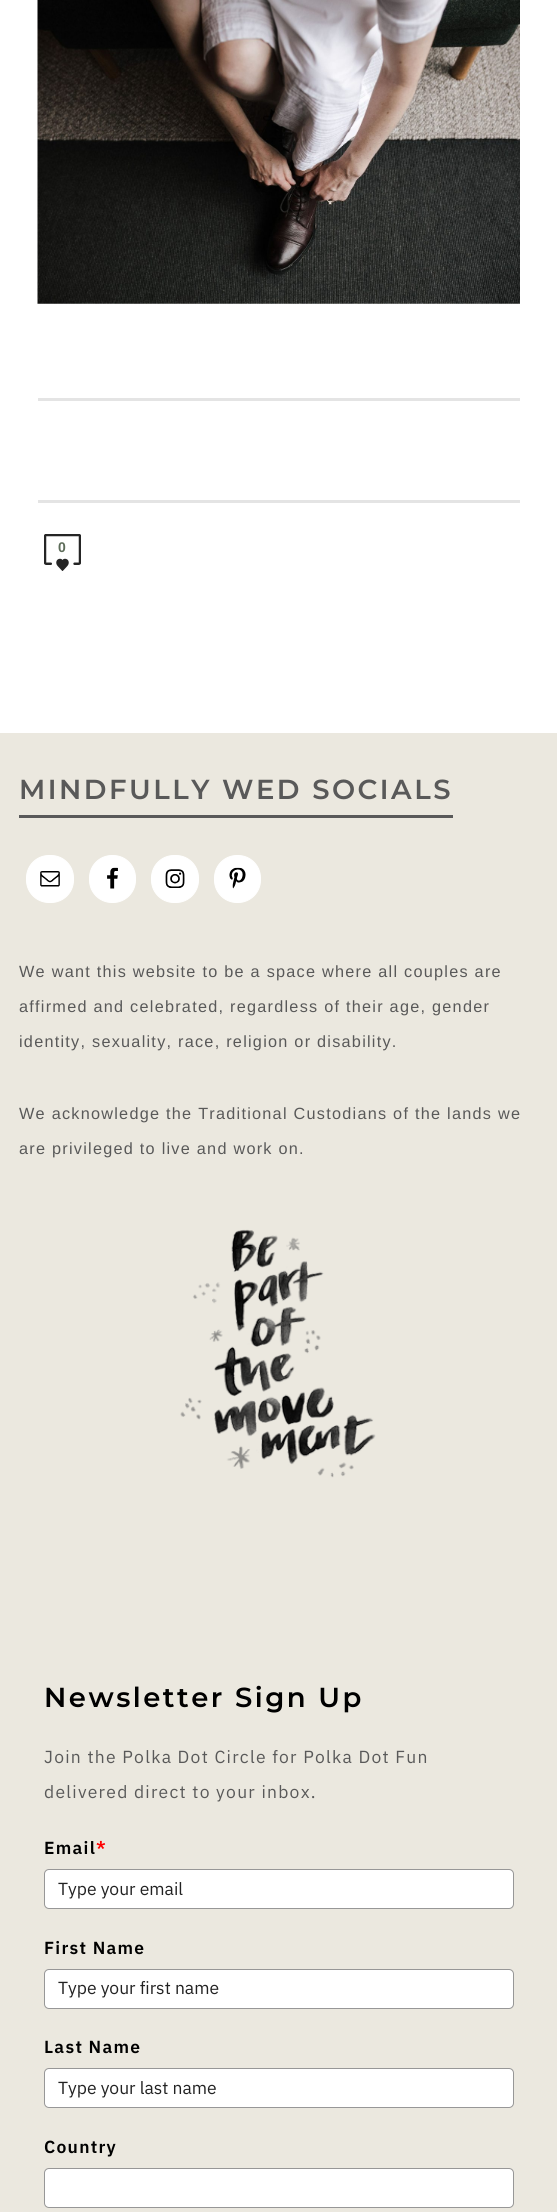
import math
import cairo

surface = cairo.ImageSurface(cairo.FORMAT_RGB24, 557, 2212)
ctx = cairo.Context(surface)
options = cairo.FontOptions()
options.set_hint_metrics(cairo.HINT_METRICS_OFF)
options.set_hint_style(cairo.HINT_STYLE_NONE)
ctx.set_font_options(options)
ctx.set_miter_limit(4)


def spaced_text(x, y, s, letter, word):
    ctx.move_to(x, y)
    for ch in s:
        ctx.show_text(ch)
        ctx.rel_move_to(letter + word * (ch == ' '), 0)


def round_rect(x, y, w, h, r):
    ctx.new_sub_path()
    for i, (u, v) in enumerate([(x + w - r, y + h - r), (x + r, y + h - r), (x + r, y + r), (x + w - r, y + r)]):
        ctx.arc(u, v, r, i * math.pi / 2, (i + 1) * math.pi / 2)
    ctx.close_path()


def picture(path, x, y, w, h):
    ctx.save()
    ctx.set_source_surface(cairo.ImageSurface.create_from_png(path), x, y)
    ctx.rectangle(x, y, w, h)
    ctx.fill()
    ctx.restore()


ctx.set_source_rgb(1, 1, 1)
ctx.paint()
picture("img1.png", 37, 0, 483, 304)
ctx.set_source_rgb(0.894, 0.894, 0.894)
ctx.rectangle(38, 398, 482, 3)
ctx.fill()
ctx.rectangle(38, 500, 482, 3)
ctx.fill()
picture("img2.png", 44, 534, 37, 37)
ctx.select_font_face("Arimo", cairo.FONT_SLANT_NORMAL, cairo.FONT_WEIGHT_BOLD)
ctx.set_font_size(14)
ctx.set_source_rgb(0.365, 0.424, 0.349)
spaced_text(58, 552, "0", 1.25, 0)
ctx.set_source_rgb(0.918, 0.91, 0.875)
ctx.rectangle(0, 733, 557, 1479)
ctx.fill()
ctx.set_source_rgb(0.349, 0.349, 0.349)
ctx.rectangle(19, 815, 434, 3)
ctx.fill()
ctx.select_font_face("Montserrat Thin")
ctx.set_font_size(27.5)
spaced_text(19, 799, "MINDFULLY WED SOCIALS", 2.5, 0)
ctx.set_source_rgb(1, 1, 1)
round_rect(26.5, 855.5, 47, 47, 22.5)
ctx.fill_preserve()
ctx.set_line_width(1)
ctx.stroke()
picture("img3.png", 40, 871, 20, 16)
round_rect(89.5, 855.5, 46, 47, 22.5)
ctx.fill_preserve()
ctx.stroke()
picture("img4.png", 107, 867, 11, 22)
round_rect(151.5, 855.5, 47, 47, 22.5)
ctx.fill_preserve()
ctx.stroke()
picture("img5.png", 165, 869, 20, 19)
round_rect(214.5, 855.5, 46, 47, 22.5)
ctx.fill_preserve()
ctx.stroke()
picture("img6.png", 229, 867, 17, 22)
ctx.select_font_face("Arimo")
ctx.set_font_size(16.25)
ctx.set_source_rgb(0.349, 0.349, 0.349)
spaced_text(19, 977, "We want this website to be a space where all couples are", 1.25, 0)
spaced_text(19, 1012, "affirmed and celebrated, regardless of their age, gender", 1.25, 0)
spaced_text(19, 1047, "identity, sexuality, race, religion or disability.", 1.25, 0)
spaced_text(19, 1119, "We acknowledge the Traditional Custodians of the lands we", 1.25, 0)
spaced_text(19, 1154, "are privileged to live and work on.", 1.25, 0)
picture("img7.png", 180, 1229, 196, 249)
ctx.select_font_face("Montserrat Thin")
ctx.set_font_size(27.5)
ctx.set_source_rgb(0, 0, 0)
spaced_text(44, 1707, "Newsletter Sign Up", 2.5, 0)
ctx.select_font_face("IBM Plex Sans")
ctx.set_font_size(17.5)
ctx.set_source_rgb(0.349, 0.349, 0.349)
spaced_text(44, 1763, "Join the Polka Dot Circle for Polka Dot Fun", 1.25, 0)
spaced_text(44, 1798, "delivered direct to your inbox.", 1.25, 0)
ctx.select_font_face("IBM Plex Sans SemiBold")
ctx.set_source_rgb(0, 0, 0)
spaced_text(44, 1854, "Email", 1.25, 0)
ctx.set_source_rgb(1, 0, 0)
spaced_text(96, 1854, "*", 1.25, 0)
ctx.set_source_rgb(1, 1, 1)
round_rect(44.5, 1869.5, 469, 39, 4.5)
ctx.fill_preserve()
ctx.set_source_rgb(0.592, 0.592, 0.592)
ctx.stroke()
ctx.select_font_face("IBM Plex Sans")
ctx.set_source_rgb(0.133, 0.133, 0.133)
ctx.move_to(58, 1895)
ctx.show_text("Type your email")
ctx.select_font_face("IBM Plex Sans SemiBold")
ctx.set_source_rgb(0, 0, 0)
spaced_text(44, 1954, "First Name", 1.25, 0)
ctx.set_source_rgb(1, 1, 1)
round_rect(44.5, 1969.5, 469, 39, 4.5)
ctx.fill_preserve()
ctx.set_source_rgb(0.592, 0.592, 0.592)
ctx.stroke()
ctx.select_font_face("IBM Plex Sans")
ctx.set_source_rgb(0.133, 0.133, 0.133)
ctx.move_to(58, 1994)
ctx.show_text("Type your first name")
ctx.select_font_face("IBM Plex Sans SemiBold")
ctx.set_source_rgb(0, 0, 0)
spaced_text(44, 2053, "Last Name", 1.25, 0)
ctx.set_source_rgb(1, 1, 1)
round_rect(44.5, 2068.5, 469, 39, 4.5)
ctx.fill_preserve()
ctx.set_source_rgb(0.592, 0.592, 0.592)
ctx.stroke()
ctx.select_font_face("IBM Plex Sans")
ctx.set_source_rgb(0.133, 0.133, 0.133)
ctx.move_to(58, 2094)
ctx.show_text("Type your last name")
ctx.select_font_face("IBM Plex Sans SemiBold")
ctx.set_source_rgb(0, 0, 0)
spaced_text(44, 2153, "Country", 1.25, 0)
ctx.set_source_rgb(1, 1, 1)
round_rect(44.5, 2168.5, 469, 39, 4.5)
ctx.fill_preserve()
ctx.set_source_rgb(0.592, 0.592, 0.592)
ctx.stroke()
surface.write_to_png("page.png")
